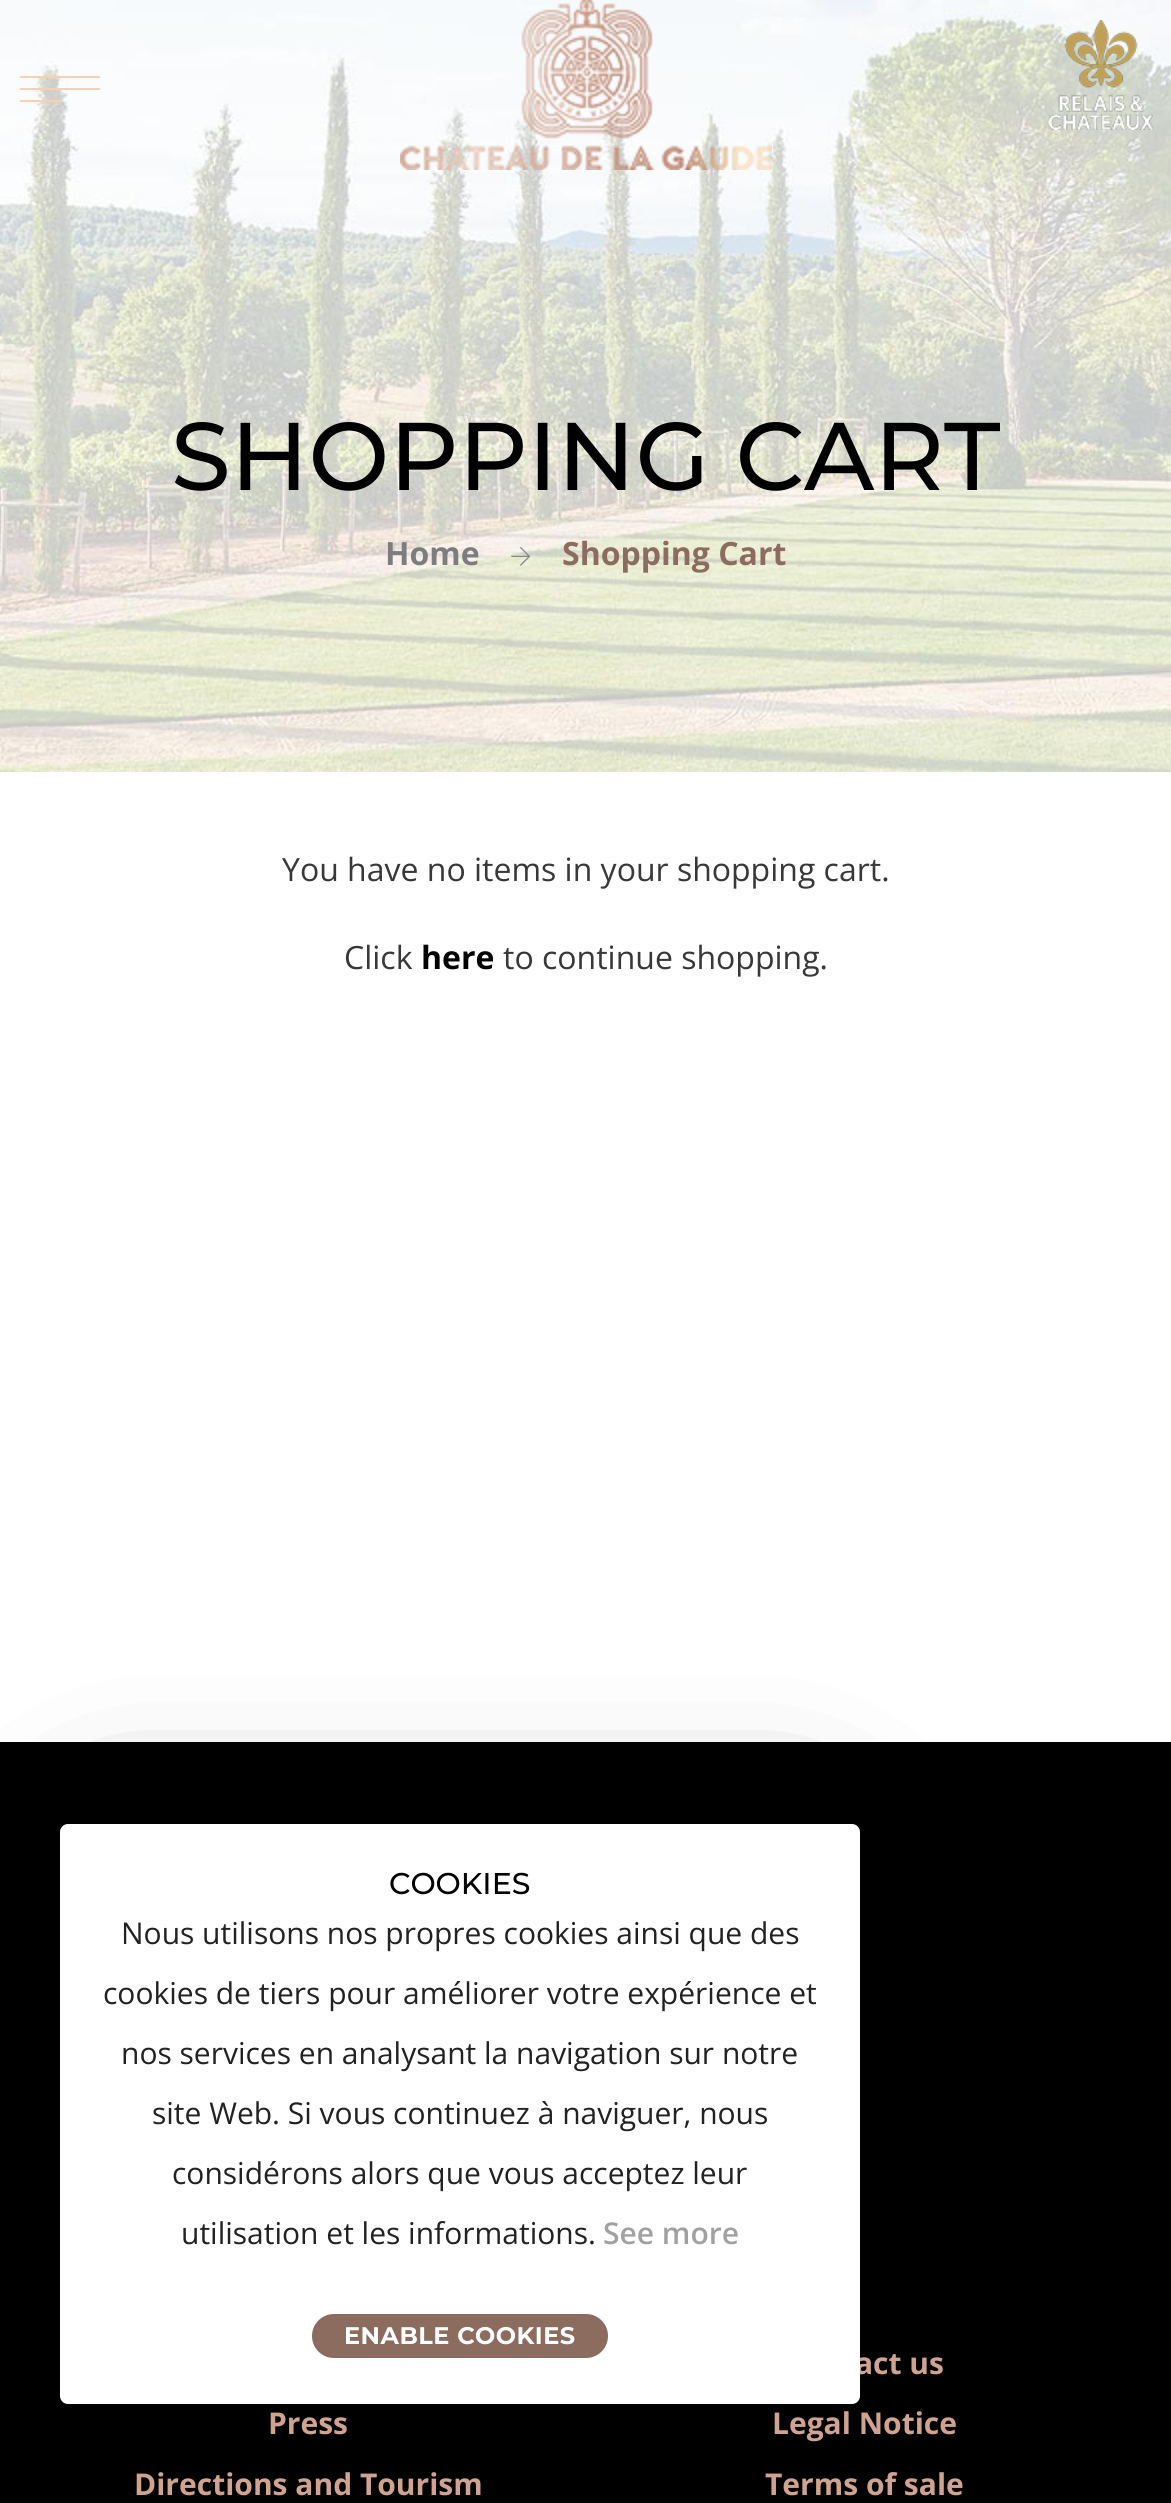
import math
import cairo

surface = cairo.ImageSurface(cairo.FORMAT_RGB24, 1171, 2503)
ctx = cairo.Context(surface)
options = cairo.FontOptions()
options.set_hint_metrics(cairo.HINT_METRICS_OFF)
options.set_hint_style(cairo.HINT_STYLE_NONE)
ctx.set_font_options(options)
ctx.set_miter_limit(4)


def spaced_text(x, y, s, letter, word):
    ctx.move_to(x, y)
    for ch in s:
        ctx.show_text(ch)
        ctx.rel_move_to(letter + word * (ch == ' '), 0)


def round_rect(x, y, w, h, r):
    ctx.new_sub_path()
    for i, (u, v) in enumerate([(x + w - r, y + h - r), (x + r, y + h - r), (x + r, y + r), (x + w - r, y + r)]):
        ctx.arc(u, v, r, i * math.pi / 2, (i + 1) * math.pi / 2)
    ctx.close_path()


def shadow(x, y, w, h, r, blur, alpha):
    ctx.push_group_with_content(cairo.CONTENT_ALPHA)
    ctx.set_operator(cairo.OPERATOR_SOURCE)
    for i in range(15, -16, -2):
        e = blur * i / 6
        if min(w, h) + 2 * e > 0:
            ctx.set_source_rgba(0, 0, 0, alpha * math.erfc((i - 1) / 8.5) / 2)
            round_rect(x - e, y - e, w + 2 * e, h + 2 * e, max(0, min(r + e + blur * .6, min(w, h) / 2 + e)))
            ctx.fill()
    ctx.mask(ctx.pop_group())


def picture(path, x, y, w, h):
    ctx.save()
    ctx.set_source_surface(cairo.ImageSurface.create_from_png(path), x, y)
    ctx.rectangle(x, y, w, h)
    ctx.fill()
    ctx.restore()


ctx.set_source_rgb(1, 1, 1)
ctx.paint()
picture("img3.png", 0, 0, 1171, 772)
ctx.set_source_rgb(0.992, 0.812, 0.69)
ctx.rectangle(20, 76, 80, 2)
ctx.fill()
ctx.rectangle(20, 88, 80, 2)
ctx.fill()
ctx.rectangle(20, 100, 42, 2)
ctx.fill()
picture("img1.png", 400, 0, 372, 170)
picture("img2.png", 1048, 20, 106, 110)
ctx.select_font_face("Montserrat Medium")
ctx.set_font_size(96)
ctx.set_source_rgb(0, 0, 0)
ctx.move_to(171, 490)
ctx.show_text("SHOPPING CART")
ctx.select_font_face("Open Sans", cairo.FONT_SLANT_NORMAL, cairo.FONT_WEIGHT_BOLD)
ctx.set_font_size(32)
ctx.set_source_rgb(0.49, 0.49, 0.49)
ctx.move_to(385, 565)
ctx.show_text("Home")
picture("img4.png", 511, 547, 20, 19)
ctx.set_source_rgb(0.549, 0.424, 0.369)
ctx.move_to(562, 565)
ctx.show_text("Shopping Cart")
ctx.select_font_face("Open Sans")
ctx.set_source_rgb(0.22, 0.22, 0.22)
ctx.move_to(282, 881)
ctx.show_text("You have no items in your shopping cart.")
ctx.move_to(344, 969)
ctx.show_text("Click")
ctx.select_font_face("Open Sans", cairo.FONT_SLANT_NORMAL, cairo.FONT_WEIGHT_BOLD)
ctx.set_source_rgb(0, 0, 0)
ctx.move_to(421, 969)
ctx.show_text("here")
ctx.select_font_face("Open Sans")
ctx.set_source_rgb(0.22, 0.22, 0.22)
ctx.move_to(503, 969)
ctx.show_text("to continue shopping.")
ctx.set_source_rgb(0, 0, 0)
ctx.rectangle(0, 1742, 1171, 761)
ctx.fill()
ctx.set_source_rgb(0, 0, 0)
shadow(108, 1880, 696, 476, 0, 82, 1)
ctx.select_font_face("Open Sans", cairo.FONT_SLANT_NORMAL, cairo.FONT_WEIGHT_BOLD)
ctx.set_font_size(30)
ctx.set_source_rgb(0.812, 0.639, 0.565)
ctx.move_to(855, 2374)
ctx.show_text("act us")
ctx.set_source_rgb(1, 1, 1)
round_rect(60, 1824, 800, 580, 8)
ctx.fill()
ctx.select_font_face("Montserrat Medium")
ctx.set_source_rgb(0, 0, 0)
ctx.move_to(389, 1894)
ctx.show_text("COOKIES")
ctx.select_font_face("Open Sans")
ctx.set_source_rgb(0.133, 0.133, 0.133)
ctx.move_to(121, 1944)
ctx.show_text("Nous utilisons nos propres cookies ainsi que des")
ctx.move_to(103, 2004)
ctx.show_text("cookies de tiers pour améliorer votre expérience et")
ctx.move_to(121, 2064)
ctx.show_text("nos services en analysant la navigation sur notre")
ctx.move_to(152, 2124)
ctx.show_text("site Web. Si vous continuez à naviguer, nous")
ctx.move_to(172, 2184)
ctx.show_text("considérons alors que vous acceptez leur")
ctx.move_to(181, 2244)
ctx.show_text("utilisation et les informations.")
ctx.select_font_face("Open Sans SemiBold")
ctx.set_source_rgb(0.631, 0.631, 0.631)
ctx.move_to(603, 2244)
ctx.show_text("See more")
ctx.set_source_rgb(0.549, 0.424, 0.369)
round_rect(313, 2315, 294, 42, 21)
ctx.fill_preserve()
ctx.stroke()
ctx.select_font_face("Montserrat", cairo.FONT_SLANT_NORMAL, cairo.FONT_WEIGHT_BOLD)
ctx.set_font_size(24)
ctx.set_source_rgb(1, 1, 1)
spaced_text(344, 2344, "ENABLE COOKIES", 0.5, 0)
ctx.select_font_face("Open Sans", cairo.FONT_SLANT_NORMAL, cairo.FONT_WEIGHT_BOLD)
ctx.set_font_size(30)
ctx.set_source_rgb(0.812, 0.639, 0.565)
ctx.move_to(268, 2434)
ctx.show_text("Press")
ctx.move_to(134, 2495)
ctx.show_text("Directions and Tourism")
ctx.move_to(772, 2434)
ctx.show_text("Legal Notice")
ctx.move_to(765, 2495)
ctx.show_text("Terms of sale")
surface.write_to_png("page.png")
